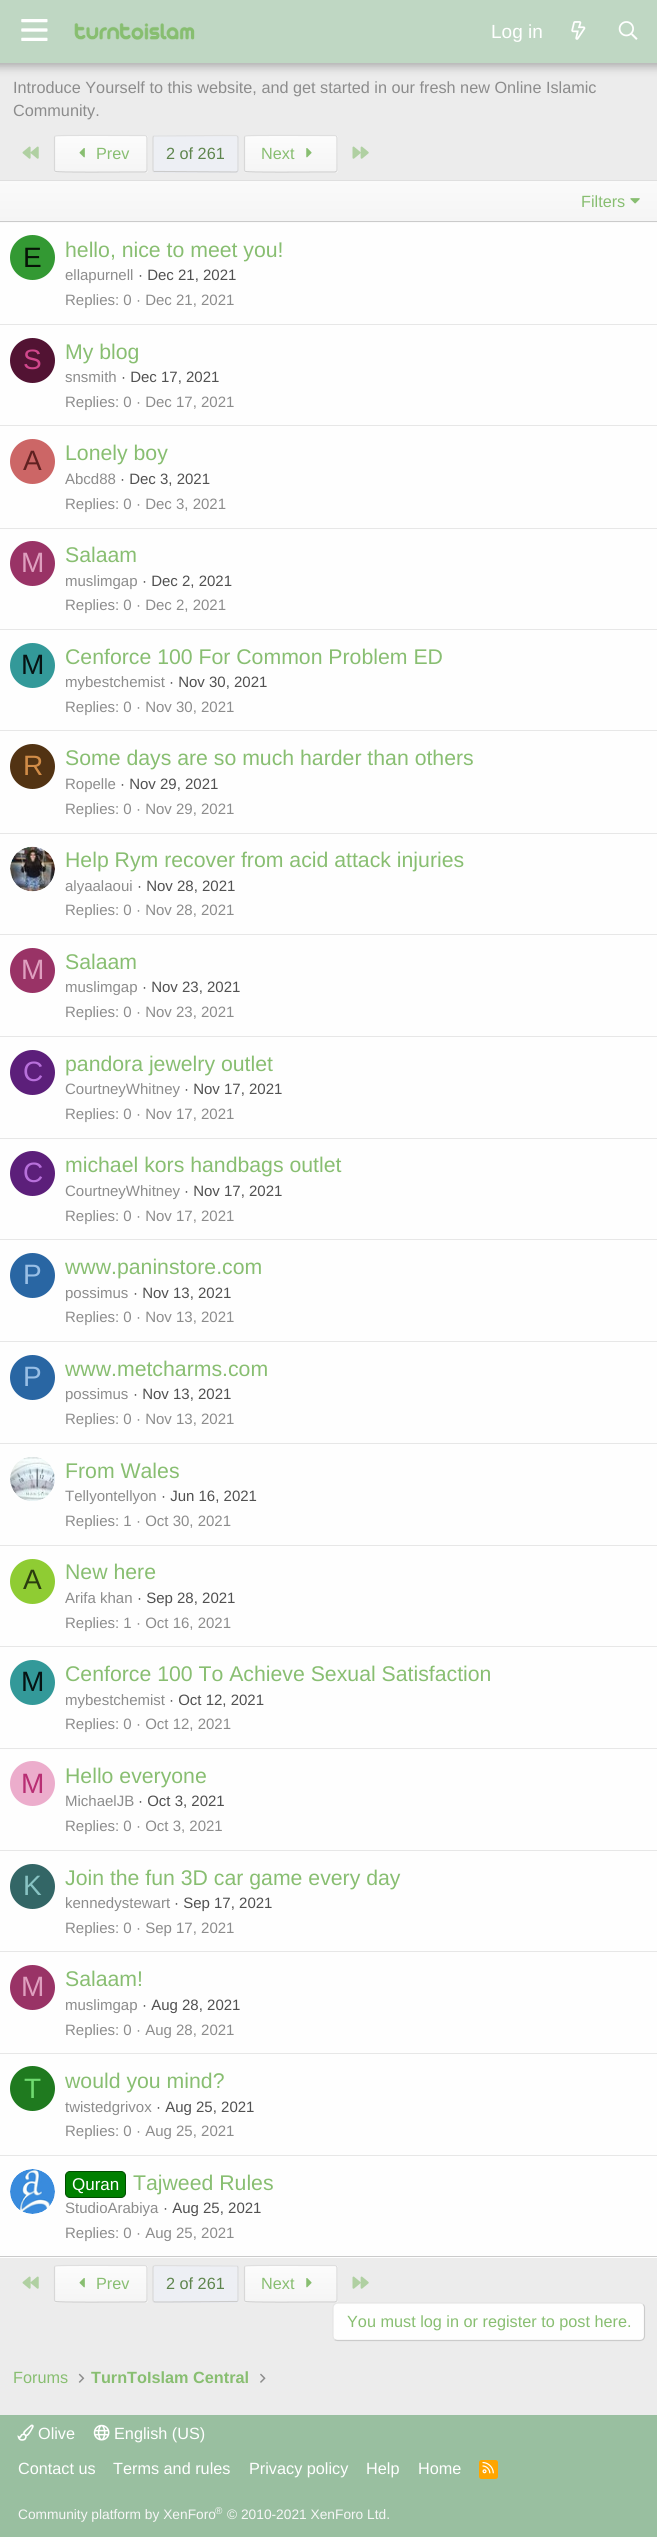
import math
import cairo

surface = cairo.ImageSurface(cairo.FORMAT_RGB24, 657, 2537)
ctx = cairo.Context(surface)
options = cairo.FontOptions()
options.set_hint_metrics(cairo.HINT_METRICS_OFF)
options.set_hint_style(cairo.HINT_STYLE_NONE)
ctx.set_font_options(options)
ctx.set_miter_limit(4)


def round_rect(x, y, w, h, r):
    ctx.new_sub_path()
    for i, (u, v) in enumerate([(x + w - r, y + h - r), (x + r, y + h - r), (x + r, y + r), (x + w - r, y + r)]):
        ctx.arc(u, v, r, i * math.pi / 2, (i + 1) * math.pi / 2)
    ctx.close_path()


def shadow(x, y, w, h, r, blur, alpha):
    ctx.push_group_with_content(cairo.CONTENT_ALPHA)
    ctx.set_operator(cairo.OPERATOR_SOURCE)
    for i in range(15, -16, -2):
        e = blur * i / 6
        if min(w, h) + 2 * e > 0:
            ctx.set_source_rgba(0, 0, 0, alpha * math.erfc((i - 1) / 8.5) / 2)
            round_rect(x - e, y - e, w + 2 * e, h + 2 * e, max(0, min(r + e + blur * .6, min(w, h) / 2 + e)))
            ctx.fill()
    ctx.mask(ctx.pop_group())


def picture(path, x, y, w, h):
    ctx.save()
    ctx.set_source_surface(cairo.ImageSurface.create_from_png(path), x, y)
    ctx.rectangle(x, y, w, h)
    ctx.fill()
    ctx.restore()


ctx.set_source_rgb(0.925, 0.925, 0.925)
ctx.paint()
ctx.set_source_rgb(0, 0, 0)
shadow(-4, -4, 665, 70, 0, 5, 0.3)
ctx.set_source_rgb(0.749, 0.843, 0.765)
ctx.rectangle(0, 0, 657, 63)
ctx.fill()
picture("img1.png", 21, 19, 27, 22)
picture("img2.png", 74, 23, 121, 17)
ctx.select_font_face("Liberation Sans")
ctx.set_font_size(19)
ctx.set_source_rgb(1, 1, 1)
ctx.move_to(491, 38)
ctx.show_text("Log in")
picture("img3.png", 571, 21, 15, 19)
picture("img4.png", 618, 21, 20, 19)
ctx.set_font_size(16.25)
ctx.set_source_rgb(0.549, 0.549, 0.549)
ctx.move_to(13, 93)
ctx.show_text("Introduce Yourself to this website, and get started in our fresh new Online Islamic")
ctx.move_to(13, 116)
ctx.show_text("Community.")
picture("img5.png", 22, 146, 17, 13)
ctx.save()
round_rect(54, 135, 94, 38, 2.5)
ctx.clip()
gradient = cairo.LinearGradient(101, 136, 101, 101)
gradient.add_color_stop_rgba(0, 0.961, 0.961, 0.961, 1)
gradient.add_color_stop_rgba(1, 0.988, 0.988, 0.988, 1)
ctx.set_source(gradient)
ctx.rectangle(54, 135, 94, 1)
ctx.fill()
ctx.restore()
gradient = cairo.LinearGradient(101, 171, 101, 136)
gradient.add_color_stop_rgba(0, 0.961, 0.961, 0.961, 1)
gradient.add_color_stop_rgba(1, 0.988, 0.988, 0.988, 1)
ctx.set_source(gradient)
ctx.rectangle(54, 136, 94, 35)
ctx.fill()
ctx.save()
round_rect(54, 135, 94, 38, 2.5)
ctx.clip()
gradient = cairo.LinearGradient(101, 206, 101, 171)
gradient.add_color_stop_rgba(0, 0.961, 0.961, 0.961, 1)
gradient.add_color_stop_rgba(1, 0.988, 0.988, 0.988, 1)
ctx.set_source(gradient)
ctx.rectangle(54, 171, 94, 2)
ctx.fill()
ctx.restore()
ctx.new_path()
ctx.move_to(55, 136)
ctx.curve_to(56, 135, 122.5, 135.5, 130, 135.5)
ctx.line_to(145, 135.5)
ctx.line_to(146.5, 136)
ctx.set_source_rgb(0.875, 0.875, 0.875)
ctx.set_line_width(1.2)
ctx.stroke()
ctx.new_path()
ctx.move_to(146.5, 136)
ctx.line_to(147, 137.5)
ctx.line_to(147, 170)
ctx.line_to(146.5, 171.5)
ctx.set_source_rgb(0.847, 0.847, 0.847)
ctx.stroke()
ctx.new_path()
ctx.move_to(146.5, 171.5)
ctx.line_to(145, 172)
ctx.line_to(130, 172)
ctx.curve_to(122.5, 172, 56, 172.5, 55, 171.5)
ctx.set_source_rgb(0.796, 0.796, 0.796)
ctx.stroke()
ctx.new_path()
ctx.move_to(55, 171.5)
ctx.line_to(54.5, 170)
ctx.line_to(54.5, 137.5)
ctx.line_to(55, 136)
ctx.set_source_rgb(0.847, 0.847, 0.847)
ctx.stroke()
picture("img6.png", 79, 148, 6, 10)
ctx.set_source_rgb(0.533, 0.745, 0.443)
ctx.move_to(96, 159)
ctx.show_text("Prev")
ctx.set_source_rgb(0.929, 0.937, 0.957)
round_rect(153, 135, 86, 38, 2.5)
ctx.fill()
ctx.new_path()
ctx.move_to(153.5, 136)
ctx.line_to(222.5, 135.5)
ctx.line_to(236, 135.5)
ctx.line_to(237.5, 136)
ctx.set_source_rgb(0.875, 0.875, 0.875)
ctx.stroke()
ctx.new_path()
ctx.move_to(237.5, 136)
ctx.line_to(238, 137.5)
ctx.line_to(238, 170)
ctx.line_to(237.5, 171.5)
ctx.set_source_rgb(0.847, 0.847, 0.847)
ctx.stroke()
ctx.new_path()
ctx.move_to(237.5, 171.5)
ctx.line_to(236, 172)
ctx.line_to(153.5, 171.5)
ctx.set_source_rgb(0.796, 0.796, 0.796)
ctx.stroke()
ctx.new_path()
ctx.move_to(153.5, 171.5)
ctx.line_to(153, 170)
ctx.line_to(153, 137.5)
ctx.line_to(153.5, 136)
ctx.set_source_rgb(0.847, 0.847, 0.847)
ctx.stroke()
ctx.set_source_rgb(0.369, 0.522, 0.302)
ctx.move_to(166, 159)
ctx.show_text("2 of 261")
ctx.save()
round_rect(244, 135, 94, 38, 2.5)
ctx.clip()
gradient = cairo.LinearGradient(291, 136, 291, 101)
gradient.add_color_stop_rgba(0, 0.961, 0.961, 0.961, 1)
gradient.add_color_stop_rgba(1, 0.988, 0.988, 0.988, 1)
ctx.set_source(gradient)
ctx.rectangle(244, 135, 94, 1)
ctx.fill()
ctx.restore()
gradient = cairo.LinearGradient(291, 171, 291, 136)
gradient.add_color_stop_rgba(0, 0.961, 0.961, 0.961, 1)
gradient.add_color_stop_rgba(1, 0.988, 0.988, 0.988, 1)
ctx.set_source(gradient)
ctx.rectangle(244, 136, 94, 35)
ctx.fill()
ctx.save()
round_rect(244, 135, 94, 38, 2.5)
ctx.clip()
gradient = cairo.LinearGradient(291, 206, 291, 171)
gradient.add_color_stop_rgba(0, 0.961, 0.961, 0.961, 1)
gradient.add_color_stop_rgba(1, 0.988, 0.988, 0.988, 1)
ctx.set_source(gradient)
ctx.rectangle(244, 171, 94, 2)
ctx.fill()
ctx.restore()
ctx.new_path()
ctx.move_to(245, 136)
ctx.curve_to(246, 135, 312.5, 135.5, 320, 135.5)
ctx.line_to(335, 135.5)
ctx.line_to(336.5, 136)
ctx.set_source_rgb(0.875, 0.875, 0.875)
ctx.stroke()
ctx.new_path()
ctx.move_to(336.5, 136)
ctx.line_to(337, 137.5)
ctx.line_to(337, 170)
ctx.line_to(336.5, 171.5)
ctx.set_source_rgb(0.847, 0.847, 0.847)
ctx.stroke()
ctx.new_path()
ctx.move_to(336.5, 171.5)
ctx.line_to(335, 172)
ctx.line_to(320, 172)
ctx.curve_to(312.5, 172, 246, 172.5, 245, 171.5)
ctx.set_source_rgb(0.796, 0.796, 0.796)
ctx.stroke()
ctx.new_path()
ctx.move_to(245, 171.5)
ctx.line_to(244.5, 170)
ctx.line_to(244.5, 137.5)
ctx.line_to(245, 136)
ctx.set_source_rgb(0.847, 0.847, 0.847)
ctx.stroke()
ctx.set_source_rgb(0.533, 0.745, 0.443)
ctx.move_to(261, 159)
ctx.show_text("Next")
picture("img7.png", 306, 148, 6, 10)
picture("img8.png", 352, 146, 17, 13)
ctx.set_source_rgb(0.996, 0.996, 0.996)
ctx.rectangle(0, 223, 657, 2035)
ctx.fill()
ctx.set_source_rgb(0.875, 0.875, 0.875)
ctx.rectangle(0, 180, 657, 1)
ctx.fill()
ctx.set_source_rgb(0.796, 0.796, 0.796)
ctx.rectangle(0, 2256, 657, 1)
ctx.fill()
gradient = cairo.LinearGradient(329, 221, 329, 181)
gradient.add_color_stop_rgba(0, 0.961, 0.961, 0.961, 1)
gradient.add_color_stop_rgba(1, 0.98, 0.98, 0.98, 1)
ctx.set_source(gradient)
ctx.rectangle(0, 181, 657, 40)
ctx.fill()
gradient = cairo.LinearGradient(329, 261, 329, 221)
gradient.add_color_stop_rgba(0, 0.961, 0.961, 0.961, 1)
gradient.add_color_stop_rgba(1, 0.98, 0.98, 0.98, 1)
ctx.set_source(gradient)
ctx.rectangle(0, 222, 657, 1)
ctx.fill()
ctx.set_source_rgb(0.796, 0.796, 0.796)
ctx.rectangle(0, 221, 657, 1)
ctx.fill()
ctx.set_source_rgb(0.533, 0.745, 0.443)
ctx.move_to(581, 207)
ctx.show_text("Filters")
picture("img9.png", 630, 198, 10, 6)
ctx.set_source_rgb(0.2, 0.6, 0.2)
ctx.arc(32.5, 257.5, 22.5, 0, 2 * math.pi)
ctx.fill()
ctx.set_font_size(28)
ctx.set_source_rgb(0.024, 0.075, 0.024)
ctx.move_to(23, 267)
ctx.show_text("E")
ctx.set_font_size(21.25)
ctx.set_source_rgb(0.533, 0.745, 0.443)
ctx.move_to(65, 257)
ctx.show_text("hello, nice to meet you!")
ctx.set_font_size(15)
ctx.set_source_rgb(0.549, 0.549, 0.549)
ctx.move_to(65, 280)
ctx.show_text("ellapurnell")
ctx.set_source_rgb(0.314, 0.314, 0.314)
ctx.move_to(138, 280)
ctx.show_text("· Dec 21, 2021")
ctx.set_source_rgb(0.549, 0.549, 0.549)
ctx.move_to(65, 305)
ctx.show_text("Replies: 0")
ctx.move_to(136, 305)
ctx.show_text("· Dec 21, 2021")
ctx.set_source_rgb(0.906, 0.906, 0.906)
ctx.rectangle(0, 324, 657, 1)
ctx.fill()
ctx.set_source_rgb(0.322, 0.078, 0.2)
ctx.arc(32.5, 360.5, 22.5, 0, 2 * math.pi)
ctx.fill()
ctx.set_font_size(28)
ctx.set_source_rgb(0.82, 0.278, 0.549)
ctx.move_to(23, 369)
ctx.show_text("S")
ctx.set_font_size(21.25)
ctx.set_source_rgb(0.533, 0.745, 0.443)
ctx.move_to(65, 359)
ctx.show_text("My blog")
ctx.set_font_size(15)
ctx.set_source_rgb(0.549, 0.549, 0.549)
ctx.move_to(65, 382)
ctx.show_text("snsmith")
ctx.set_source_rgb(0.314, 0.314, 0.314)
ctx.move_to(121, 382)
ctx.show_text("· Dec 17, 2021")
ctx.set_source_rgb(0.549, 0.549, 0.549)
ctx.move_to(65, 407)
ctx.show_text("Replies: 0")
ctx.move_to(136, 407)
ctx.show_text("· Dec 17, 2021")
ctx.set_source_rgb(0.906, 0.906, 0.906)
ctx.rectangle(0, 425, 657, 1)
ctx.fill()
ctx.set_source_rgb(0.8, 0.4, 0.4)
ctx.arc(32.5, 461.5, 22.5, 0, 2 * math.pi)
ctx.fill()
ctx.set_font_size(28)
ctx.set_source_rgb(0.376, 0.125, 0.125)
ctx.move_to(23, 470)
ctx.show_text("A")
ctx.set_font_size(21.25)
ctx.set_source_rgb(0.533, 0.745, 0.443)
ctx.move_to(65, 460)
ctx.show_text("Lonely boy")
ctx.set_font_size(15)
ctx.set_source_rgb(0.549, 0.549, 0.549)
ctx.move_to(65, 484)
ctx.show_text("Abcd88")
ctx.set_source_rgb(0.314, 0.314, 0.314)
ctx.move_to(120, 484)
ctx.show_text("· Dec 3, 2021")
ctx.set_source_rgb(0.549, 0.549, 0.549)
ctx.move_to(65, 509)
ctx.show_text("Replies: 0")
ctx.move_to(136, 509)
ctx.show_text("· Dec 3, 2021")
ctx.set_source_rgb(0.906, 0.906, 0.906)
ctx.rectangle(0, 528, 657, 1)
ctx.fill()
ctx.set_source_rgb(0.6, 0.2, 0.4)
ctx.arc(32.5, 563.5, 22.5, 0, 2 * math.pi)
ctx.fill()
ctx.set_font_size(28)
ctx.set_source_rgb(0.875, 0.624, 0.749)
ctx.move_to(21, 572)
ctx.show_text("M")
ctx.set_font_size(21.25)
ctx.set_source_rgb(0.533, 0.745, 0.443)
ctx.move_to(65, 562)
ctx.show_text("Salaam")
ctx.set_font_size(15)
ctx.set_source_rgb(0.549, 0.549, 0.549)
ctx.move_to(65, 586)
ctx.show_text("muslimgap")
ctx.set_source_rgb(0.314, 0.314, 0.314)
ctx.move_to(142, 586)
ctx.show_text("· Dec 2, 2021")
ctx.set_source_rgb(0.549, 0.549, 0.549)
ctx.move_to(65, 610)
ctx.show_text("Replies: 0")
ctx.move_to(136, 610)
ctx.show_text("· Dec 2, 2021")
ctx.set_source_rgb(0.906, 0.906, 0.906)
ctx.rectangle(0, 629, 657, 1)
ctx.fill()
ctx.set_source_rgb(0.2, 0.6, 0.6)
ctx.arc(32.5, 665.5, 22.5, 0, 2 * math.pi)
ctx.fill()
ctx.set_font_size(28)
ctx.set_source_rgb(0.024, 0.075, 0.075)
ctx.move_to(21, 674)
ctx.show_text("M")
ctx.set_font_size(21.25)
ctx.set_source_rgb(0.533, 0.745, 0.443)
ctx.move_to(65, 664)
ctx.show_text("Cenforce 100 For Common Problem ED")
ctx.set_font_size(15)
ctx.set_source_rgb(0.549, 0.549, 0.549)
ctx.move_to(65, 687)
ctx.show_text("mybestchemist")
ctx.set_source_rgb(0.314, 0.314, 0.314)
ctx.move_to(169, 687)
ctx.show_text("· Nov 30, 2021")
ctx.set_source_rgb(0.549, 0.549, 0.549)
ctx.move_to(65, 712)
ctx.show_text("Replies: 0")
ctx.move_to(136, 712)
ctx.show_text("· Nov 30, 2021")
ctx.set_source_rgb(0.906, 0.906, 0.906)
ctx.rectangle(0, 730, 657, 1)
ctx.fill()
ctx.set_source_rgb(0.322, 0.2, 0.078)
ctx.arc(32.5, 766.5, 22.5, 0, 2 * math.pi)
ctx.fill()
ctx.set_font_size(28)
ctx.set_source_rgb(0.82, 0.549, 0.278)
ctx.move_to(23, 775)
ctx.show_text("R")
ctx.set_font_size(21.25)
ctx.set_source_rgb(0.533, 0.745, 0.443)
ctx.move_to(65, 765)
ctx.show_text("Some days are so much harder than others")
ctx.set_font_size(15)
ctx.set_source_rgb(0.549, 0.549, 0.549)
ctx.move_to(65, 789)
ctx.show_text("Ropelle")
ctx.set_source_rgb(0.314, 0.314, 0.314)
ctx.move_to(120, 789)
ctx.show_text("· Nov 29, 2021")
ctx.set_source_rgb(0.549, 0.549, 0.549)
ctx.move_to(65, 814)
ctx.show_text("Replies: 0")
ctx.move_to(136, 814)
ctx.show_text("· Nov 29, 2021")
ctx.set_source_rgb(0.906, 0.906, 0.906)
ctx.rectangle(0, 833, 657, 1)
ctx.fill()
picture("img10.png", 10, 846, 45, 46)
ctx.set_font_size(21.25)
ctx.set_source_rgb(0.533, 0.745, 0.443)
ctx.move_to(65, 867)
ctx.show_text("Help Rym recover from acid attack injuries")
ctx.set_font_size(15)
ctx.set_source_rgb(0.549, 0.549, 0.549)
ctx.move_to(65, 891)
ctx.show_text("alyaalaoui")
ctx.set_source_rgb(0.314, 0.314, 0.314)
ctx.move_to(137, 891)
ctx.show_text("· Nov 28, 2021")
ctx.set_source_rgb(0.549, 0.549, 0.549)
ctx.move_to(65, 915)
ctx.show_text("Replies: 0")
ctx.move_to(136, 915)
ctx.show_text("· Nov 28, 2021")
ctx.set_source_rgb(0.906, 0.906, 0.906)
ctx.rectangle(0, 934, 657, 1)
ctx.fill()
ctx.set_source_rgb(0.6, 0.2, 0.4)
ctx.arc(32.5, 970.5, 22.5, 0, 2 * math.pi)
ctx.fill()
ctx.set_font_size(28)
ctx.set_source_rgb(0.875, 0.624, 0.749)
ctx.move_to(21, 979)
ctx.show_text("M")
ctx.set_font_size(21.25)
ctx.set_source_rgb(0.533, 0.745, 0.443)
ctx.move_to(65, 969)
ctx.show_text("Salaam")
ctx.set_font_size(15)
ctx.set_source_rgb(0.549, 0.549, 0.549)
ctx.move_to(65, 992)
ctx.show_text("muslimgap")
ctx.set_source_rgb(0.314, 0.314, 0.314)
ctx.move_to(142, 992)
ctx.show_text("· Nov 23, 2021")
ctx.set_source_rgb(0.549, 0.549, 0.549)
ctx.move_to(65, 1017)
ctx.show_text("Replies: 0")
ctx.move_to(136, 1017)
ctx.show_text("· Nov 23, 2021")
ctx.set_source_rgb(0.906, 0.906, 0.906)
ctx.rectangle(0, 1036, 657, 1)
ctx.fill()
ctx.set_source_rgb(0.361, 0.122, 0.478)
ctx.arc(32.5, 1072.5, 22.5, 0, 2 * math.pi)
ctx.fill()
ctx.set_font_size(28)
ctx.set_source_rgb(0.722, 0.439, 0.859)
ctx.move_to(23, 1081)
ctx.show_text("C")
ctx.set_font_size(21.25)
ctx.set_source_rgb(0.533, 0.745, 0.443)
ctx.move_to(65, 1071)
ctx.show_text("pandora jewelry outlet")
ctx.set_font_size(15)
ctx.set_source_rgb(0.549, 0.549, 0.549)
ctx.move_to(65, 1094)
ctx.show_text("CourtneyWhitney")
ctx.set_source_rgb(0.314, 0.314, 0.314)
ctx.move_to(184, 1094)
ctx.show_text("· Nov 17, 2021")
ctx.set_source_rgb(0.549, 0.549, 0.549)
ctx.move_to(65, 1119)
ctx.show_text("Replies: 0")
ctx.move_to(136, 1119)
ctx.show_text("· Nov 17, 2021")
ctx.set_source_rgb(0.906, 0.906, 0.906)
ctx.rectangle(0, 1138, 657, 1)
ctx.fill()
ctx.set_source_rgb(0.361, 0.122, 0.478)
ctx.arc(32.5, 1173.5, 22.5, 0, 2 * math.pi)
ctx.fill()
ctx.set_font_size(28)
ctx.set_source_rgb(0.722, 0.439, 0.859)
ctx.move_to(23, 1182)
ctx.show_text("C")
ctx.set_font_size(21.25)
ctx.set_source_rgb(0.533, 0.745, 0.443)
ctx.move_to(65, 1172)
ctx.show_text("michael kors handbags outlet")
ctx.set_font_size(15)
ctx.set_source_rgb(0.549, 0.549, 0.549)
ctx.move_to(65, 1196)
ctx.show_text("CourtneyWhitney")
ctx.set_source_rgb(0.314, 0.314, 0.314)
ctx.move_to(184, 1196)
ctx.show_text("· Nov 17, 2021")
ctx.set_source_rgb(0.549, 0.549, 0.549)
ctx.move_to(65, 1221)
ctx.show_text("Replies: 0")
ctx.move_to(136, 1221)
ctx.show_text("· Nov 17, 2021")
ctx.set_source_rgb(0.906, 0.906, 0.906)
ctx.rectangle(0, 1239, 657, 1)
ctx.fill()
ctx.set_source_rgb(0.161, 0.4, 0.639)
ctx.arc(32.5, 1275.5, 22.5, 0, 2 * math.pi)
ctx.fill()
ctx.set_font_size(28)
ctx.set_source_rgb(0.6, 0.749, 0.902)
ctx.move_to(23, 1284)
ctx.show_text("P")
ctx.set_font_size(21.25)
ctx.set_source_rgb(0.533, 0.745, 0.443)
ctx.move_to(65, 1274)
ctx.show_text("www.paninstore.com")
ctx.set_font_size(15)
ctx.set_source_rgb(0.549, 0.549, 0.549)
ctx.move_to(65, 1298)
ctx.show_text("possimus")
ctx.set_source_rgb(0.314, 0.314, 0.314)
ctx.move_to(133, 1298)
ctx.show_text("· Nov 13, 2021")
ctx.set_source_rgb(0.549, 0.549, 0.549)
ctx.move_to(65, 1322)
ctx.show_text("Replies: 0")
ctx.move_to(136, 1322)
ctx.show_text("· Nov 13, 2021")
ctx.set_source_rgb(0.906, 0.906, 0.906)
ctx.rectangle(0, 1341, 657, 1)
ctx.fill()
ctx.set_source_rgb(0.161, 0.4, 0.639)
ctx.arc(32.5, 1377.5, 22.5, 0, 2 * math.pi)
ctx.fill()
ctx.set_font_size(28)
ctx.set_source_rgb(0.6, 0.749, 0.902)
ctx.move_to(23, 1386)
ctx.show_text("P")
ctx.set_font_size(21.25)
ctx.set_source_rgb(0.533, 0.745, 0.443)
ctx.move_to(65, 1376)
ctx.show_text("www.metcharms.com")
ctx.set_font_size(15)
ctx.set_source_rgb(0.549, 0.549, 0.549)
ctx.move_to(65, 1399)
ctx.show_text("possimus")
ctx.set_source_rgb(0.314, 0.314, 0.314)
ctx.move_to(133, 1399)
ctx.show_text("· Nov 13, 2021")
ctx.set_source_rgb(0.549, 0.549, 0.549)
ctx.move_to(65, 1424)
ctx.show_text("Replies: 0")
ctx.move_to(136, 1424)
ctx.show_text("· Nov 13, 2021")
ctx.set_source_rgb(0.906, 0.906, 0.906)
ctx.rectangle(0, 1443, 657, 1)
ctx.fill()
picture("img11.png", 10, 1457, 45, 44)
ctx.set_font_size(21.25)
ctx.set_source_rgb(0.533, 0.745, 0.443)
ctx.move_to(65, 1478)
ctx.show_text("From Wales")
ctx.set_font_size(15)
ctx.set_source_rgb(0.549, 0.549, 0.549)
ctx.move_to(65, 1501)
ctx.show_text("Tellyontellyon")
ctx.set_source_rgb(0.314, 0.314, 0.314)
ctx.move_to(161, 1501)
ctx.show_text("· Jun 16, 2021")
ctx.set_source_rgb(0.549, 0.549, 0.549)
ctx.move_to(65, 1526)
ctx.show_text("Replies: 1")
ctx.move_to(136, 1526)
ctx.show_text("· Oct 30, 2021")
ctx.set_source_rgb(0.906, 0.906, 0.906)
ctx.rectangle(0, 1545, 657, 1)
ctx.fill()
ctx.set_source_rgb(0.561, 0.8, 0.2)
ctx.arc(32.5, 1581.5, 22.5, 0, 2 * math.pi)
ctx.fill()
ctx.set_font_size(28)
ctx.set_source_rgb(0.169, 0.239, 0.059)
ctx.move_to(23, 1589)
ctx.show_text("A")
ctx.set_font_size(21.25)
ctx.set_source_rgb(0.533, 0.745, 0.443)
ctx.move_to(65, 1579)
ctx.show_text("New here")
ctx.set_font_size(15)
ctx.set_source_rgb(0.549, 0.549, 0.549)
ctx.move_to(65, 1603)
ctx.show_text("Arifa khan")
ctx.set_source_rgb(0.314, 0.314, 0.314)
ctx.move_to(137, 1603)
ctx.show_text("· Sep 28, 2021")
ctx.set_source_rgb(0.549, 0.549, 0.549)
ctx.move_to(65, 1628)
ctx.show_text("Replies: 1")
ctx.move_to(136, 1628)
ctx.show_text("· Oct 16, 2021")
ctx.set_source_rgb(0.906, 0.906, 0.906)
ctx.rectangle(0, 1646, 657, 1)
ctx.fill()
ctx.set_source_rgb(0.2, 0.6, 0.6)
ctx.arc(32.5, 1682.5, 22.5, 0, 2 * math.pi)
ctx.fill()
ctx.set_font_size(28)
ctx.set_source_rgb(0.024, 0.075, 0.075)
ctx.move_to(21, 1691)
ctx.show_text("M")
ctx.set_font_size(21.25)
ctx.set_source_rgb(0.533, 0.745, 0.443)
ctx.move_to(65, 1681)
ctx.show_text("Cenforce 100 To Achieve Sexual Satisfaction")
ctx.set_font_size(15)
ctx.set_source_rgb(0.549, 0.549, 0.549)
ctx.move_to(65, 1705)
ctx.show_text("mybestchemist")
ctx.set_source_rgb(0.314, 0.314, 0.314)
ctx.move_to(169, 1705)
ctx.show_text("· Oct 12, 2021")
ctx.set_source_rgb(0.549, 0.549, 0.549)
ctx.move_to(65, 1729)
ctx.show_text("Replies: 0")
ctx.move_to(136, 1729)
ctx.show_text("· Oct 12, 2021")
ctx.set_source_rgb(0.906, 0.906, 0.906)
ctx.rectangle(0, 1748, 657, 1)
ctx.fill()
ctx.set_source_rgb(0.922, 0.678, 0.8)
ctx.arc(32.5, 1783.5, 22.5, 0, 2 * math.pi)
ctx.fill()
ctx.set_font_size(28)
ctx.set_source_rgb(0.722, 0.18, 0.451)
ctx.move_to(21, 1793)
ctx.show_text("M")
ctx.set_font_size(21.25)
ctx.set_source_rgb(0.533, 0.745, 0.443)
ctx.move_to(65, 1783)
ctx.show_text("Hello everyone")
ctx.set_font_size(15)
ctx.set_source_rgb(0.549, 0.549, 0.549)
ctx.move_to(65, 1806)
ctx.show_text("MichaelJB")
ctx.set_source_rgb(0.314, 0.314, 0.314)
ctx.move_to(138, 1806)
ctx.show_text("· Oct 3, 2021")
ctx.set_source_rgb(0.549, 0.549, 0.549)
ctx.move_to(65, 1831)
ctx.show_text("Replies: 0")
ctx.move_to(136, 1831)
ctx.show_text("· Oct 3, 2021")
ctx.set_source_rgb(0.906, 0.906, 0.906)
ctx.rectangle(0, 1850, 657, 1)
ctx.fill()
ctx.set_source_rgb(0.2, 0.4, 0.4)
ctx.arc(32.5, 1886.5, 22.5, 0, 2 * math.pi)
ctx.fill()
ctx.set_font_size(28)
ctx.set_source_rgb(0.533, 0.765, 0.765)
ctx.move_to(23, 1895)
ctx.show_text("K")
ctx.set_font_size(21.25)
ctx.set_source_rgb(0.533, 0.745, 0.443)
ctx.move_to(65, 1885)
ctx.show_text("Join the fun 3D car game every day")
ctx.set_font_size(15)
ctx.set_source_rgb(0.549, 0.549, 0.549)
ctx.move_to(65, 1908)
ctx.show_text("kennedystewart")
ctx.set_source_rgb(0.314, 0.314, 0.314)
ctx.move_to(174, 1908)
ctx.show_text("· Sep 17, 2021")
ctx.set_source_rgb(0.549, 0.549, 0.549)
ctx.move_to(65, 1933)
ctx.show_text("Replies: 0")
ctx.move_to(136, 1933)
ctx.show_text("· Sep 17, 2021")
ctx.set_source_rgb(0.906, 0.906, 0.906)
ctx.rectangle(0, 1951, 657, 1)
ctx.fill()
ctx.set_source_rgb(0.6, 0.2, 0.4)
ctx.arc(32.5, 1987.5, 22.5, 0, 2 * math.pi)
ctx.fill()
ctx.set_font_size(28)
ctx.set_source_rgb(0.875, 0.624, 0.749)
ctx.move_to(21, 1996)
ctx.show_text("M")
ctx.set_font_size(21.25)
ctx.set_source_rgb(0.533, 0.745, 0.443)
ctx.move_to(65, 1986)
ctx.show_text("Salaam!")
ctx.set_font_size(15)
ctx.set_source_rgb(0.549, 0.549, 0.549)
ctx.move_to(65, 2010)
ctx.show_text("muslimgap")
ctx.set_source_rgb(0.314, 0.314, 0.314)
ctx.move_to(142, 2010)
ctx.show_text("· Aug 28, 2021")
ctx.set_source_rgb(0.549, 0.549, 0.549)
ctx.move_to(65, 2035)
ctx.show_text("Replies: 0")
ctx.move_to(136, 2035)
ctx.show_text("· Aug 28, 2021")
ctx.set_source_rgb(0.906, 0.906, 0.906)
ctx.rectangle(0, 2053, 657, 1)
ctx.fill()
ctx.set_source_rgb(0.122, 0.478, 0.122)
ctx.arc(32.5, 2088.5, 22.5, 0, 2 * math.pi)
ctx.fill()
ctx.set_font_size(28)
ctx.set_source_rgb(0.439, 0.859, 0.439)
ctx.move_to(24, 2098)
ctx.show_text("T")
ctx.set_font_size(21.25)
ctx.set_source_rgb(0.533, 0.745, 0.443)
ctx.move_to(65, 2088)
ctx.show_text("would you mind?")
ctx.set_font_size(15)
ctx.set_source_rgb(0.549, 0.549, 0.549)
ctx.move_to(65, 2112)
ctx.show_text("twistedgrivox")
ctx.set_source_rgb(0.314, 0.314, 0.314)
ctx.move_to(156, 2112)
ctx.show_text("· Aug 25, 2021")
ctx.set_source_rgb(0.549, 0.549, 0.549)
ctx.move_to(65, 2136)
ctx.show_text("Replies: 0")
ctx.move_to(136, 2136)
ctx.show_text("· Aug 25, 2021")
ctx.set_source_rgb(0.906, 0.906, 0.906)
ctx.rectangle(0, 2155, 657, 1)
ctx.fill()
picture("img12.png", 10, 2169, 45, 45)
ctx.set_source_rgb(0, 0.502, 0)
round_rect(65.5, 2171.5, 60, 26, 4.5)
ctx.fill_preserve()
ctx.set_source_rgb(0, 0.302, 0)
ctx.set_line_width(1)
ctx.stroke()
ctx.set_font_size(17)
ctx.set_source_rgb(1, 1, 1)
ctx.move_to(72, 2190)
ctx.show_text("Quran")
ctx.set_font_size(21.25)
ctx.set_source_rgb(0.533, 0.745, 0.443)
ctx.move_to(133, 2190)
ctx.show_text("Tajweed Rules")
ctx.set_font_size(15)
ctx.set_source_rgb(0.549, 0.549, 0.549)
ctx.move_to(65, 2213)
ctx.show_text("StudioArabiya")
ctx.set_source_rgb(0.314, 0.314, 0.314)
ctx.move_to(163, 2213)
ctx.show_text("· Aug 25, 2021")
ctx.set_source_rgb(0.549, 0.549, 0.549)
ctx.move_to(65, 2238)
ctx.show_text("Replies: 0")
ctx.move_to(136, 2238)
ctx.show_text("· Aug 25, 2021")
picture("img5.png", 22, 2276, 17, 13)
ctx.save()
round_rect(54, 2265, 94, 38, 2.5)
ctx.clip()
gradient = cairo.LinearGradient(101, 2266, 101, 2231)
gradient.add_color_stop_rgba(0, 0.961, 0.961, 0.961, 1)
gradient.add_color_stop_rgba(1, 0.988, 0.988, 0.988, 1)
ctx.set_source(gradient)
ctx.rectangle(54, 2265, 94, 1)
ctx.fill()
ctx.restore()
gradient = cairo.LinearGradient(101, 2301, 101, 2266)
gradient.add_color_stop_rgba(0, 0.961, 0.961, 0.961, 1)
gradient.add_color_stop_rgba(1, 0.988, 0.988, 0.988, 1)
ctx.set_source(gradient)
ctx.rectangle(54, 2266, 94, 35)
ctx.fill()
ctx.save()
round_rect(54, 2265, 94, 38, 2.5)
ctx.clip()
gradient = cairo.LinearGradient(101, 2336, 101, 2301)
gradient.add_color_stop_rgba(0, 0.961, 0.961, 0.961, 1)
gradient.add_color_stop_rgba(1, 0.988, 0.988, 0.988, 1)
ctx.set_source(gradient)
ctx.rectangle(54, 2301, 94, 2)
ctx.fill()
ctx.restore()
ctx.new_path()
ctx.move_to(55, 2266)
ctx.curve_to(56, 2265, 122.5, 2265.5, 130, 2265.5)
ctx.line_to(145, 2265.5)
ctx.line_to(146.5, 2266)
ctx.set_source_rgb(0.875, 0.875, 0.875)
ctx.set_line_width(1.2)
ctx.stroke()
ctx.new_path()
ctx.move_to(146.5, 2266)
ctx.line_to(147, 2267.5)
ctx.line_to(147, 2300)
ctx.line_to(146.5, 2301.5)
ctx.set_source_rgb(0.847, 0.847, 0.847)
ctx.stroke()
ctx.new_path()
ctx.move_to(146.5, 2301.5)
ctx.line_to(145, 2302)
ctx.line_to(130, 2302)
ctx.curve_to(122.5, 2302, 56, 2302.5, 55, 2301.5)
ctx.set_source_rgb(0.796, 0.796, 0.796)
ctx.stroke()
ctx.new_path()
ctx.move_to(55, 2301.5)
ctx.line_to(54.5, 2300)
ctx.line_to(54.5, 2267.5)
ctx.line_to(55, 2266)
ctx.set_source_rgb(0.847, 0.847, 0.847)
ctx.stroke()
picture("img6.png", 79, 2278, 6, 10)
ctx.set_font_size(16.25)
ctx.set_source_rgb(0.533, 0.745, 0.443)
ctx.move_to(96, 2289)
ctx.show_text("Prev")
ctx.set_source_rgb(0.929, 0.937, 0.957)
round_rect(153, 2265, 86, 38, 2.5)
ctx.fill()
ctx.new_path()
ctx.move_to(153.5, 2266)
ctx.line_to(155, 2265.5)
ctx.line_to(237.5, 2266)
ctx.set_source_rgb(0.875, 0.875, 0.875)
ctx.stroke()
ctx.new_path()
ctx.move_to(237.5, 2266)
ctx.line_to(238, 2267.5)
ctx.line_to(238, 2300)
ctx.line_to(237.5, 2301.5)
ctx.set_source_rgb(0.847, 0.847, 0.847)
ctx.stroke()
ctx.new_path()
ctx.move_to(237.5, 2301.5)
ctx.line_to(168.5, 2302)
ctx.line_to(155, 2302)
ctx.line_to(153.5, 2301.5)
ctx.set_source_rgb(0.796, 0.796, 0.796)
ctx.stroke()
ctx.new_path()
ctx.move_to(153.5, 2301.5)
ctx.line_to(153, 2300)
ctx.line_to(153, 2267.5)
ctx.line_to(153.5, 2266)
ctx.set_source_rgb(0.847, 0.847, 0.847)
ctx.stroke()
ctx.set_source_rgb(0.369, 0.522, 0.302)
ctx.move_to(166, 2289)
ctx.show_text("2 of 261")
ctx.save()
round_rect(244, 2265, 94, 38, 2.5)
ctx.clip()
gradient = cairo.LinearGradient(291, 2266, 291, 2231)
gradient.add_color_stop_rgba(0, 0.961, 0.961, 0.961, 1)
gradient.add_color_stop_rgba(1, 0.988, 0.988, 0.988, 1)
ctx.set_source(gradient)
ctx.rectangle(244, 2265, 94, 1)
ctx.fill()
ctx.restore()
gradient = cairo.LinearGradient(291, 2301, 291, 2266)
gradient.add_color_stop_rgba(0, 0.961, 0.961, 0.961, 1)
gradient.add_color_stop_rgba(1, 0.988, 0.988, 0.988, 1)
ctx.set_source(gradient)
ctx.rectangle(244, 2266, 94, 35)
ctx.fill()
ctx.save()
round_rect(244, 2265, 94, 38, 2.5)
ctx.clip()
gradient = cairo.LinearGradient(291, 2336, 291, 2301)
gradient.add_color_stop_rgba(0, 0.961, 0.961, 0.961, 1)
gradient.add_color_stop_rgba(1, 0.988, 0.988, 0.988, 1)
ctx.set_source(gradient)
ctx.rectangle(244, 2301, 94, 2)
ctx.fill()
ctx.restore()
ctx.new_path()
ctx.move_to(245, 2266)
ctx.curve_to(246, 2265, 312.5, 2265.5, 320, 2265.5)
ctx.line_to(335, 2265.5)
ctx.line_to(336.5, 2266)
ctx.set_source_rgb(0.875, 0.875, 0.875)
ctx.stroke()
ctx.new_path()
ctx.move_to(336.5, 2266)
ctx.line_to(337, 2267.5)
ctx.line_to(337, 2300)
ctx.line_to(336.5, 2301.5)
ctx.set_source_rgb(0.847, 0.847, 0.847)
ctx.stroke()
ctx.new_path()
ctx.move_to(336.5, 2301.5)
ctx.line_to(335, 2302)
ctx.line_to(320, 2302)
ctx.curve_to(312.5, 2302, 246, 2302.5, 245, 2301.5)
ctx.set_source_rgb(0.796, 0.796, 0.796)
ctx.stroke()
ctx.new_path()
ctx.move_to(245, 2301.5)
ctx.line_to(244.5, 2300)
ctx.line_to(244.5, 2267.5)
ctx.line_to(245, 2266)
ctx.set_source_rgb(0.847, 0.847, 0.847)
ctx.stroke()
ctx.set_source_rgb(0.533, 0.745, 0.443)
ctx.move_to(261, 2289)
ctx.show_text("Next")
picture("img7.png", 306, 2278, 6, 10)
picture("img8.png", 352, 2276, 17, 13)
ctx.set_source_rgb(0.996, 0.996, 0.996)
round_rect(333, 2303, 312, 38, 5)
ctx.fill()
ctx.new_path()
ctx.move_to(643, 2304.5)
ctx.curve_to(644, 2305, 644.5, 2306.5, 644.5, 2307.5)
ctx.line_to(644.5, 2336)
ctx.curve_to(644.5, 2337.5, 644, 2338.5, 643, 2339.5)
ctx.curve_to(642.5, 2340, 641, 2340.5, 640, 2340.5)
ctx.line_to(337.5, 2340.5)
ctx.curve_to(336.5, 2340.5, 335, 2340, 334.5, 2339.5)
ctx.set_source_rgb(0.796, 0.796, 0.796)
ctx.stroke()
ctx.new_path()
ctx.move_to(334.5, 2339.5)
ctx.curve_to(333.5, 2338.5, 333, 2337.5, 333, 2336)
ctx.line_to(333, 2307.5)
ctx.curve_to(333, 2306.5, 333.5, 2305, 334.5, 2304.5)
ctx.curve_to(335, 2303.5, 336.5, 2303, 337.5, 2303)
ctx.line_to(640, 2303)
ctx.curve_to(641, 2303, 642.5, 2303.5, 643, 2304.5)
ctx.set_source_rgb(0.898, 0.898, 0.898)
ctx.stroke()
ctx.set_source_rgb(0.533, 0.745, 0.443)
ctx.move_to(347, 2327)
ctx.show_text("You must log in or register to post here.")
ctx.move_to(13, 2383)
ctx.show_text("Forums")
picture("img13.png", 78, 2373, 7, 10)
ctx.select_font_face("Liberation Sans", cairo.FONT_SLANT_NORMAL, cairo.FONT_WEIGHT_BOLD)
ctx.move_to(91, 2383)
ctx.show_text("TurnToIslam Central")
picture("img14.png", 260, 2373, 6, 10)
ctx.set_source_rgb(0.6, 0.749, 0.627)
ctx.rectangle(0, 2415, 657, 122)
ctx.fill()
picture("img15.png", 17, 2424, 17, 17)
ctx.select_font_face("Liberation Sans")
ctx.set_source_rgb(1, 1, 1)
ctx.move_to(38, 2439)
ctx.show_text("Olive")
picture("img16.png", 93, 2424, 17, 17)
ctx.move_to(114, 2439)
ctx.show_text("English (US)")
ctx.move_to(18, 2474)
ctx.show_text("Contact us")
ctx.move_to(113, 2474)
ctx.show_text("Terms and rules")
ctx.move_to(249, 2474)
ctx.show_text("Privacy policy")
ctx.move_to(366, 2474)
ctx.show_text("Help")
ctx.move_to(418, 2474)
ctx.show_text("Home")
ctx.set_source_rgb(1, 0.647, 0)
round_rect(479, 2460, 19, 19, 2.5)
ctx.fill()
picture("img17.png", 482, 2462, 12, 12)
ctx.set_font_size(13.75)
ctx.set_source_rgb(0.961, 0.961, 0.961)
ctx.move_to(18, 2519)
ctx.show_text("Community platform by XenForo")
ctx.set_font_size(10)
ctx.move_to(215, 2514)
ctx.show_text("®")
ctx.set_font_size(13.75)
ctx.move_to(227, 2519)
ctx.show_text("© 2010-2021 XenForo Ltd.")
surface.write_to_png("page.png")
